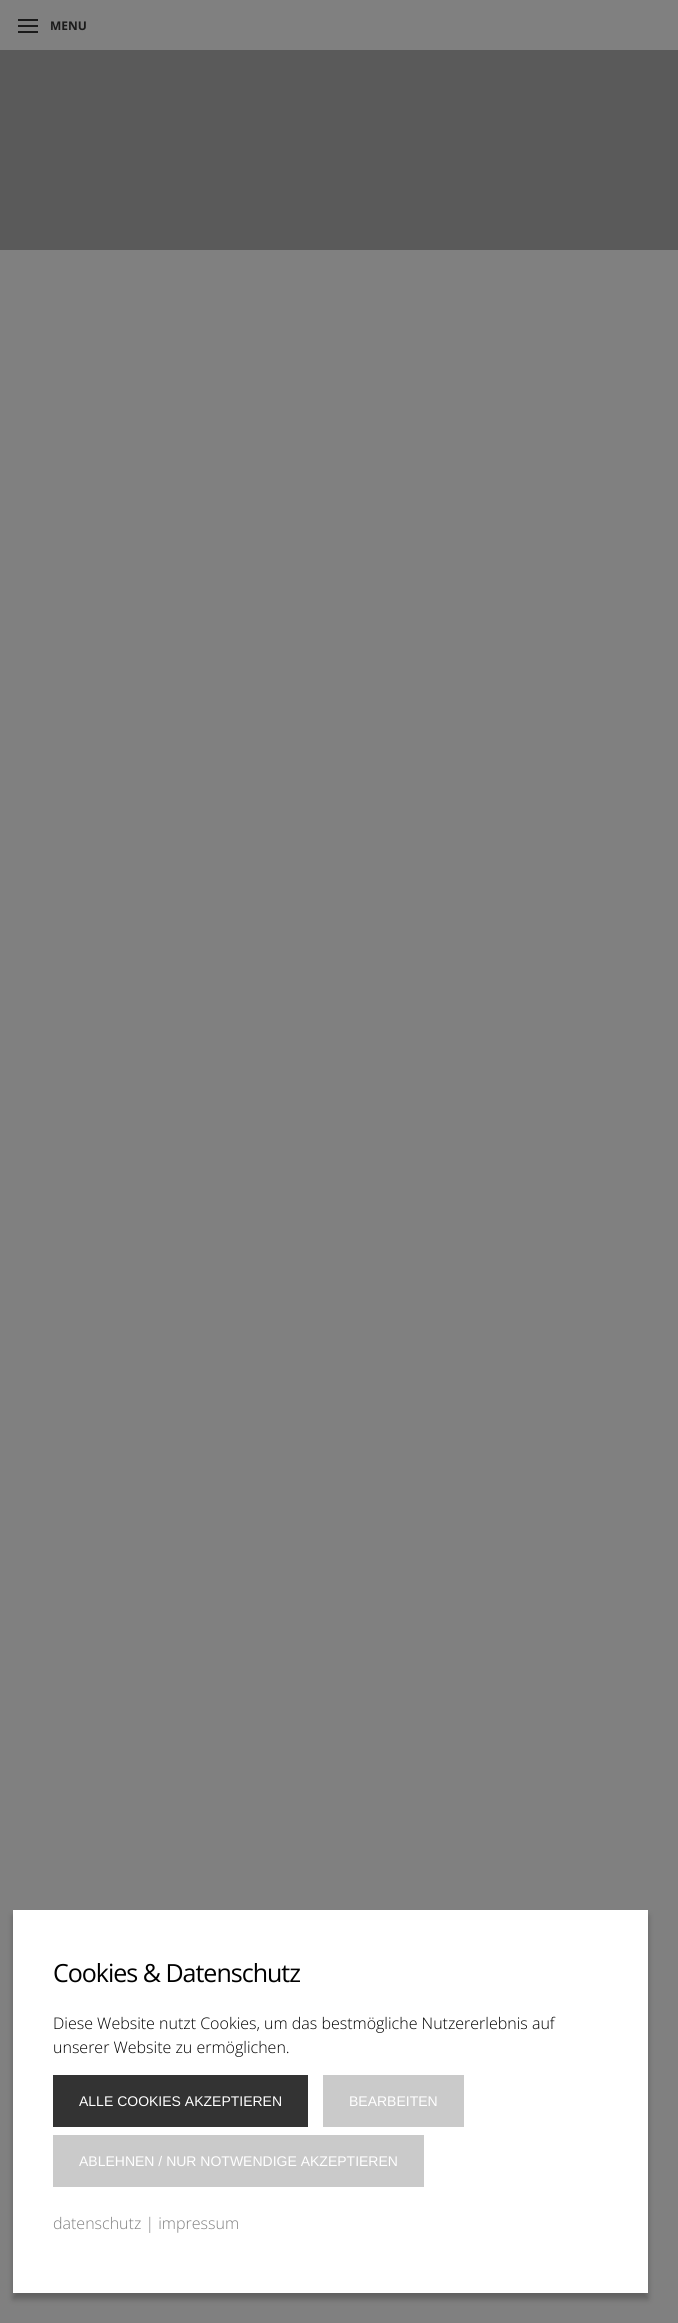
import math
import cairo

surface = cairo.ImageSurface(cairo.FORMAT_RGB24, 678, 2323)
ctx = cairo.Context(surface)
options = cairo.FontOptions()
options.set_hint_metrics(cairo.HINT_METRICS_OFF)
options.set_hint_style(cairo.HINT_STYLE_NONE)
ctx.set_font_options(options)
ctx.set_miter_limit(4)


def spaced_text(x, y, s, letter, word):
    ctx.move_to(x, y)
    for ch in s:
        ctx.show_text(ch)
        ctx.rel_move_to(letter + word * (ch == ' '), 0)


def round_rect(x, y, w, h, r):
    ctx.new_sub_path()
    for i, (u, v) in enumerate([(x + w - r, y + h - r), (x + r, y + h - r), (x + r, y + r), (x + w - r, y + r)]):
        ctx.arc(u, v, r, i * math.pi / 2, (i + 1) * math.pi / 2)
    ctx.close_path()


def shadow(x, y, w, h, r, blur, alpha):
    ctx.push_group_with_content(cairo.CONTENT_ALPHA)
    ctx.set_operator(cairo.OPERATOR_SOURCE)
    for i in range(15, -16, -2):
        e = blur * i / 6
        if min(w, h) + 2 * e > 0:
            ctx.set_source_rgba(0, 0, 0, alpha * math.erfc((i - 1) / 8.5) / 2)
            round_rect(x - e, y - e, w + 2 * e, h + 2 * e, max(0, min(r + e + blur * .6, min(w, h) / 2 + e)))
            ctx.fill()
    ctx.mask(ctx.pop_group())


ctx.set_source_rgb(0.502, 0.502, 0.502)
ctx.paint()
ctx.set_source_rgb(0.102, 0.102, 0.102)
ctx.rectangle(18, 25, 20, 2)
ctx.fill()
ctx.rectangle(18, 19, 20, 2)
ctx.fill()
ctx.rectangle(18, 31, 20, 2)
ctx.fill()
ctx.select_font_face("Open Sans", cairo.FONT_SLANT_NORMAL, cairo.FONT_WEIGHT_BOLD)
ctx.set_font_size(12)
ctx.move_to(50, 30)
ctx.show_text("MENU")
ctx.set_source_rgb(0.353, 0.353, 0.353)
ctx.rectangle(0, 50, 678, 200)
ctx.fill()
ctx.set_source_rgb(0, 0, 0)
shadow(13, 1916, 635, 383, 0, 3, 0.25)
ctx.set_source_rgb(1, 1, 1)
ctx.rectangle(13, 1910, 635, 383)
ctx.fill()
ctx.select_font_face("Open Sans")
ctx.set_font_size(25)
ctx.set_source_rgb(0, 0, 0)
spaced_text(53, 1982, "Cookies & Datenschutz", -1, 0)
ctx.select_font_face("Open Sans Light")
ctx.set_font_size(16)
ctx.move_to(53, 2029)
ctx.show_text("Diese Website nutzt Cookies, um das bestmögliche Nutzererlebnis auf")
ctx.move_to(53, 2053)
ctx.show_text("unserer Website zu ermöglichen.")
ctx.set_source_rgb(0.2, 0.2, 0.2)
ctx.rectangle(53, 2075, 255, 52)
ctx.fill()
ctx.select_font_face("Liberation Sans")
ctx.set_font_size(14)
ctx.set_source_rgb(1, 1, 1)
ctx.move_to(79, 2106)
ctx.show_text("ALLE COOKIES AKZEPTIEREN")
ctx.set_source_rgb(0.792, 0.792, 0.792)
ctx.rectangle(323, 2075, 141, 52)
ctx.fill()
ctx.set_source_rgb(1, 1, 1)
ctx.move_to(349, 2106)
ctx.show_text("BEARBEITEN")
ctx.set_source_rgb(0.792, 0.792, 0.792)
ctx.rectangle(53, 2135, 371, 52)
ctx.fill()
ctx.set_source_rgb(1, 1, 1)
ctx.move_to(79, 2166)
ctx.show_text("ABLEHNEN / NUR NOTWENDIGE AKZEPTIEREN")
ctx.select_font_face("Open Sans Light")
ctx.set_font_size(16)
ctx.set_source_rgb(0.502, 0.502, 0.502)
ctx.move_to(53, 2229)
ctx.show_text("datenschutz | impressum")
surface.write_to_png("page.png")
